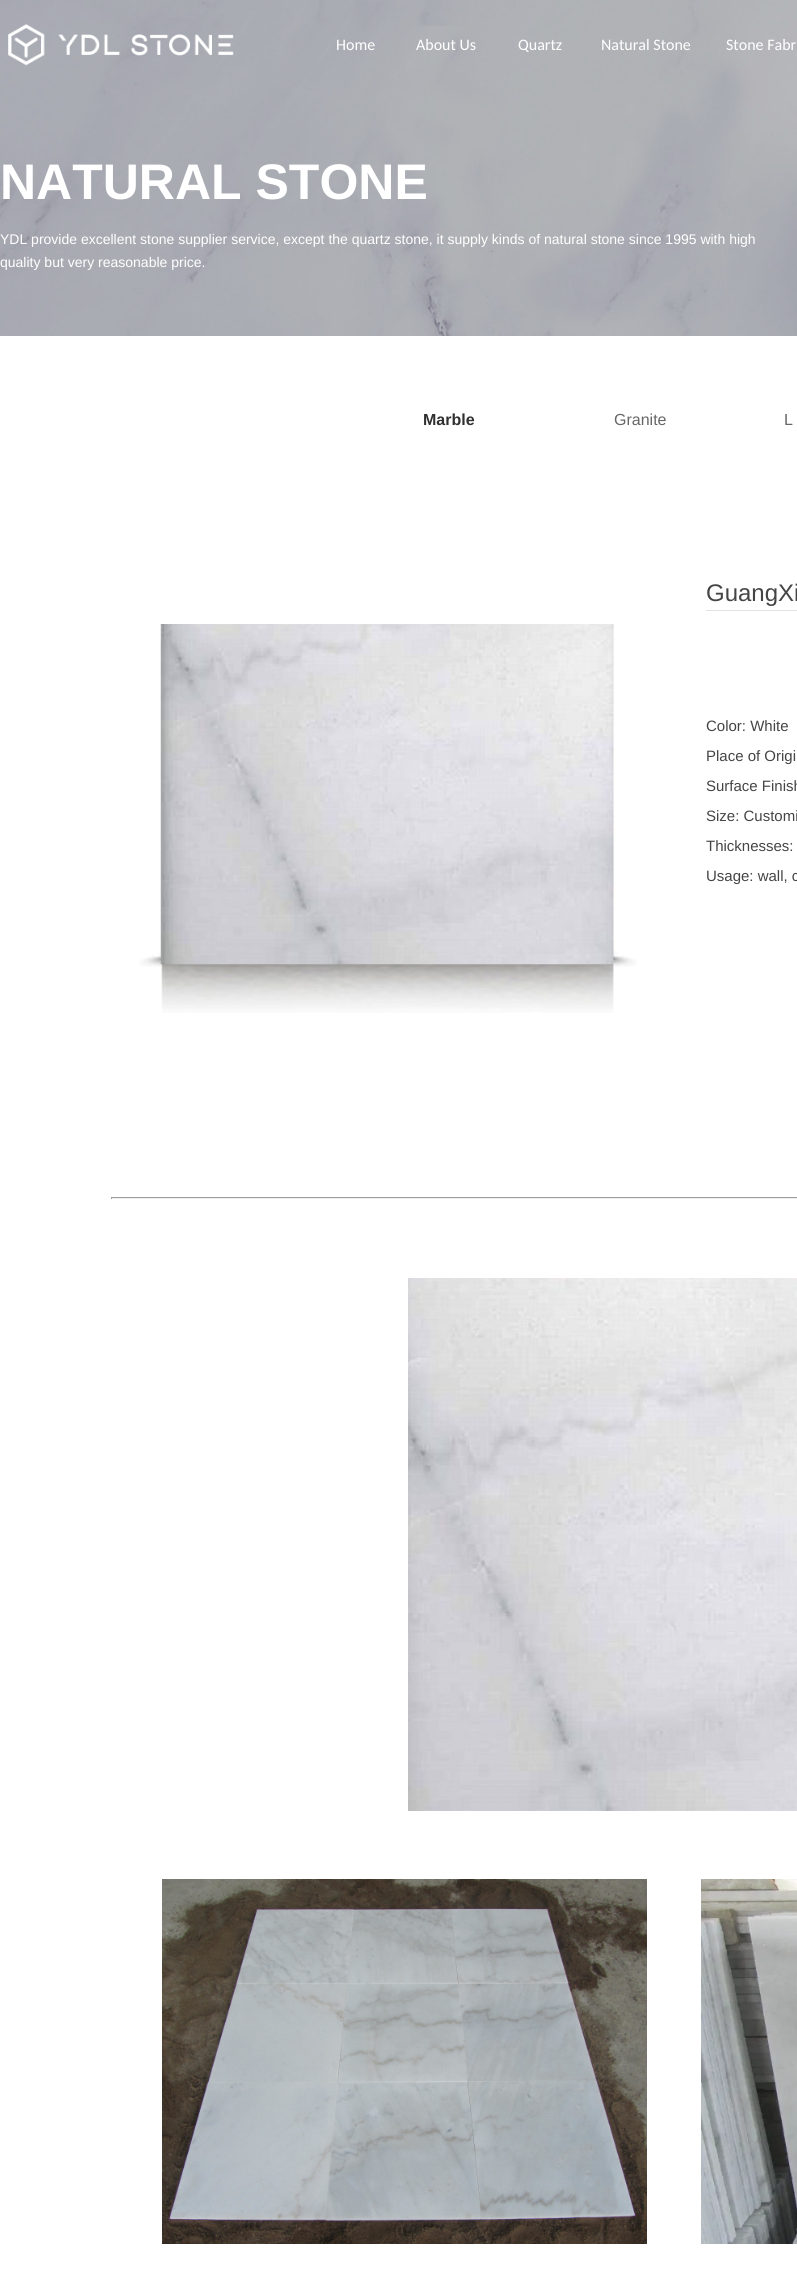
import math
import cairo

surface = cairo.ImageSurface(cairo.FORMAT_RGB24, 797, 2293)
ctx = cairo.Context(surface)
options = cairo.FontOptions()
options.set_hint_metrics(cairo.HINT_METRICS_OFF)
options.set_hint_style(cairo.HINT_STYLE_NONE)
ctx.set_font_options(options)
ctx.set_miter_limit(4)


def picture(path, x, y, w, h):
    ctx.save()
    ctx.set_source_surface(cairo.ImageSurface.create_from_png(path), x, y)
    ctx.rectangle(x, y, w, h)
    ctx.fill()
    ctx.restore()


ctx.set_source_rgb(1, 1, 1)
ctx.paint()
picture("img1.png", 0, 0, 797, 336)
picture("img2.png", 8, 24, 226, 42)
ctx.select_font_face("Carlito")
ctx.set_font_size(16)
ctx.set_source_rgb(1, 1, 1)
ctx.move_to(336, 50)
ctx.show_text("Home")
ctx.move_to(416, 50)
ctx.show_text("About Us")
ctx.move_to(518, 50)
ctx.show_text("Quartz")
ctx.move_to(601, 50)
ctx.show_text("Natural Stone")
ctx.move_to(726, 50)
ctx.show_text("Stone Fabr")
ctx.select_font_face("Liberation Sans", cairo.FONT_SLANT_NORMAL, cairo.FONT_WEIGHT_BOLD)
ctx.set_font_size(50)
ctx.move_to(0, 199)
ctx.show_text("NATURAL STONE")
ctx.select_font_face("Liberation Sans")
ctx.set_font_size(14)
ctx.move_to(0, 244)
ctx.show_text("YDL provide excellent stone supplier service, except the quartz stone, it supply kinds of natural stone since 1995 with high")
ctx.move_to(0, 267)
ctx.show_text("quality but very reasonable price.")
ctx.select_font_face("Liberation Sans", cairo.FONT_SLANT_NORMAL, cairo.FONT_WEIGHT_BOLD)
ctx.set_font_size(16)
ctx.set_source_rgb(0.188, 0.188, 0.188)
ctx.move_to(423, 425)
ctx.show_text("Marble")
ctx.select_font_face("Liberation Sans")
ctx.set_source_rgb(0.4, 0.4, 0.4)
ctx.move_to(614, 425)
ctx.show_text("Granite")
ctx.move_to(784, 425)
ctx.show_text("L")
picture("img3.png", 139, 624, 498, 389)
ctx.set_source_rgb(0.886, 0.886, 0.886)
ctx.rectangle(706, 610, 91, 1)
ctx.fill()
ctx.set_font_size(24)
ctx.set_source_rgb(0.271, 0.271, 0.271)
ctx.move_to(706, 601)
ctx.show_text("GuangXi")
ctx.set_font_size(15)
ctx.move_to(706, 731)
ctx.show_text("Color: White")
ctx.move_to(706, 761)
ctx.show_text("Place of Origi")
ctx.move_to(706, 791)
ctx.show_text("Surface Finish")
ctx.move_to(706, 821)
ctx.show_text("Size: Customi")
ctx.move_to(706, 851)
ctx.show_text("Thicknesses:")
ctx.move_to(706, 881)
ctx.show_text("Usage: wall, c")
ctx.set_source_rgb(0.624, 0.624, 0.624)
ctx.rectangle(111, 1197, 686, 1)
ctx.fill()
ctx.set_source_rgb(0.933, 0.933, 0.933)
ctx.rectangle(111, 1198, 686, 1)
ctx.fill()
ctx.set_source_rgb(0.624, 0.624, 0.624)
ctx.rectangle(111, 1197, 1, 2)
ctx.fill()
picture("img4.png", 408, 1278, 389, 533)
picture("img5.png", 162, 1879, 485, 365)
picture("img6.png", 701, 1879, 96, 365)
surface.write_to_png("page.png")
